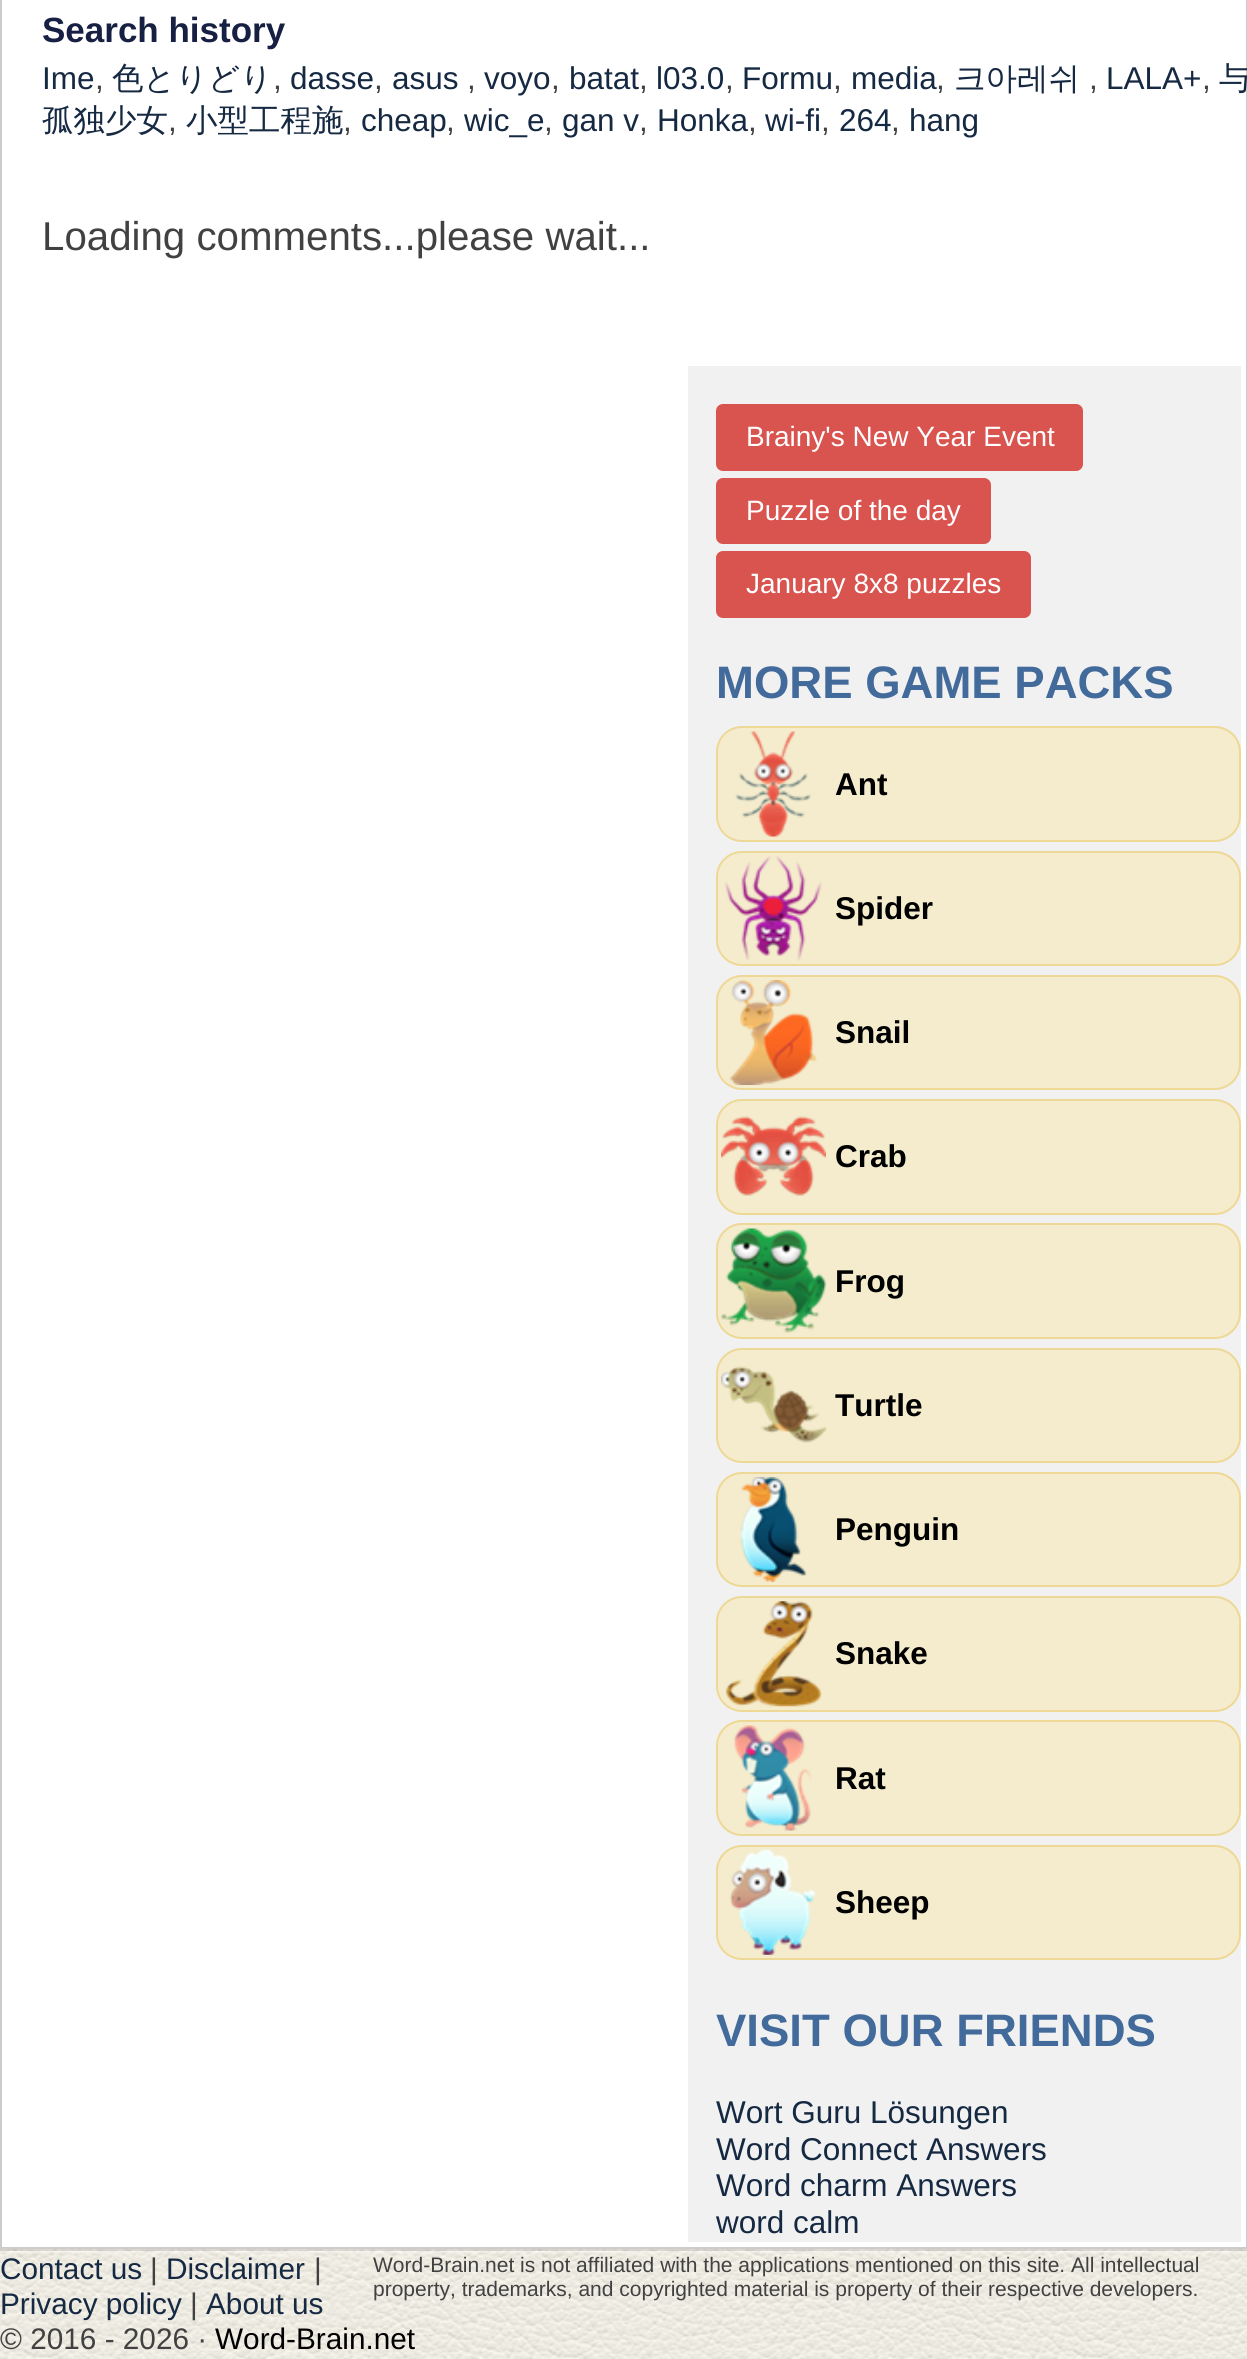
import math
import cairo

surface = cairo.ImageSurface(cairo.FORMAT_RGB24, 1247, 2359)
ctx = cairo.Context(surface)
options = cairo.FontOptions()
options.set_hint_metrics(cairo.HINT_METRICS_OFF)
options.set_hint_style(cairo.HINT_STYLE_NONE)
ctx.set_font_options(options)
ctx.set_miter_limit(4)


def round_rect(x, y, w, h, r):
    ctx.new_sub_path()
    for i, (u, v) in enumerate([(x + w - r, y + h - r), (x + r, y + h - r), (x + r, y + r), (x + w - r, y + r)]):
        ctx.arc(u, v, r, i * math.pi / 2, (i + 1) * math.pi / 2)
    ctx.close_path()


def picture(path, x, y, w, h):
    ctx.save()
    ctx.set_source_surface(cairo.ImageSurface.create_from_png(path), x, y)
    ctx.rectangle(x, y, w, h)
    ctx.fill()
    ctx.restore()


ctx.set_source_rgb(1, 1, 1)
ctx.paint()
picture("img1.png", 0, 2249, 1247, 110)
ctx.rectangle(1, -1, 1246, 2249)
ctx.set_source_rgb(0.8, 0.8, 0.8)
ctx.stroke()
ctx.select_font_face("Liberation Sans", cairo.FONT_SLANT_NORMAL, cairo.FONT_WEIGHT_BOLD)
ctx.set_font_size(35)
ctx.set_source_rgb(0.09, 0.125, 0.263)
ctx.move_to(42, 42)
ctx.show_text("Search history")
ctx.select_font_face("Liberation Sans")
ctx.set_font_size(31.5)
ctx.set_source_rgb(0.086, 0.161, 0.259)
ctx.move_to(42, 89)
ctx.show_text("Ime")
ctx.set_source_rgb(0.255, 0.255, 0.255)
ctx.move_to(95, 89)
ctx.show_text(",")
ctx.select_font_face("WenQuanYi Zen Hei Medium")
ctx.set_source_rgb(0.086, 0.161, 0.259)
ctx.move_to(112, 89)
ctx.show_text("色とりどり")
ctx.select_font_face("Liberation Sans")
ctx.set_source_rgb(0.255, 0.255, 0.255)
ctx.move_to(273, 89)
ctx.show_text(",")
ctx.set_source_rgb(0.086, 0.161, 0.259)
ctx.move_to(290, 89)
ctx.show_text("dasse")
ctx.set_source_rgb(0.255, 0.255, 0.255)
ctx.move_to(374, 89)
ctx.show_text(",")
ctx.set_source_rgb(0.086, 0.161, 0.259)
ctx.move_to(392, 89)
ctx.show_text("asus")
ctx.set_source_rgb(0.255, 0.255, 0.255)
ctx.move_to(467, 89)
ctx.show_text(",")
ctx.set_source_rgb(0.086, 0.161, 0.259)
ctx.move_to(484, 89)
ctx.show_text("voyo")
ctx.set_source_rgb(0.255, 0.255, 0.255)
ctx.move_to(551, 89)
ctx.show_text(",")
ctx.set_source_rgb(0.086, 0.161, 0.259)
ctx.move_to(569, 89)
ctx.show_text("batat")
ctx.set_source_rgb(0.255, 0.255, 0.255)
ctx.move_to(639, 89)
ctx.show_text(",")
ctx.set_source_rgb(0.086, 0.161, 0.259)
ctx.move_to(656, 89)
ctx.show_text("l03.0")
ctx.set_source_rgb(0.255, 0.255, 0.255)
ctx.move_to(725, 89)
ctx.show_text(",")
ctx.set_source_rgb(0.086, 0.161, 0.259)
ctx.move_to(742, 89)
ctx.show_text("Formu")
ctx.set_source_rgb(0.255, 0.255, 0.255)
ctx.move_to(833, 89)
ctx.show_text(",")
ctx.set_source_rgb(0.086, 0.161, 0.259)
ctx.move_to(851, 89)
ctx.show_text("media")
ctx.set_source_rgb(0.255, 0.255, 0.255)
ctx.move_to(936, 89)
ctx.show_text(",")
ctx.select_font_face("WenQuanYi Zen Hei Medium")
ctx.set_source_rgb(0.086, 0.161, 0.259)
ctx.move_to(954, 89)
ctx.show_text("크아레쉬")
ctx.select_font_face("Liberation Sans")
ctx.set_source_rgb(0.255, 0.255, 0.255)
ctx.move_to(1089, 89)
ctx.show_text(",")
ctx.set_source_rgb(0.086, 0.161, 0.259)
ctx.move_to(1106, 89)
ctx.show_text("LALA+")
ctx.set_source_rgb(0.255, 0.255, 0.255)
ctx.move_to(1202, 89)
ctx.show_text(",")
ctx.select_font_face("WenQuanYi Zen Hei Medium")
ctx.set_source_rgb(0.086, 0.161, 0.259)
ctx.move_to(1219, 89)
ctx.show_text("与")
ctx.move_to(42, 131)
ctx.show_text("孤独少女")
ctx.select_font_face("Liberation Sans")
ctx.set_source_rgb(0.255, 0.255, 0.255)
ctx.move_to(168, 131)
ctx.show_text(",")
ctx.select_font_face("WenQuanYi Zen Hei Medium")
ctx.set_source_rgb(0.086, 0.161, 0.259)
ctx.move_to(186, 131)
ctx.show_text("小型工程施")
ctx.select_font_face("Liberation Sans")
ctx.set_source_rgb(0.255, 0.255, 0.255)
ctx.move_to(343, 131)
ctx.show_text(",")
ctx.set_source_rgb(0.086, 0.161, 0.259)
ctx.move_to(361, 131)
ctx.show_text("cheap")
ctx.set_source_rgb(0.255, 0.255, 0.255)
ctx.move_to(446, 131)
ctx.show_text(",")
ctx.set_source_rgb(0.086, 0.161, 0.259)
ctx.move_to(464, 131)
ctx.show_text("wic_e")
ctx.set_source_rgb(0.255, 0.255, 0.255)
ctx.move_to(544, 131)
ctx.show_text(",")
ctx.set_source_rgb(0.086, 0.161, 0.259)
ctx.move_to(562, 131)
ctx.show_text("gan v")
ctx.set_source_rgb(0.255, 0.255, 0.255)
ctx.move_to(639, 131)
ctx.show_text(",")
ctx.set_source_rgb(0.086, 0.161, 0.259)
ctx.move_to(657, 131)
ctx.show_text("Honka")
ctx.set_source_rgb(0.255, 0.255, 0.255)
ctx.move_to(748, 131)
ctx.show_text(",")
ctx.set_source_rgb(0.086, 0.161, 0.259)
ctx.move_to(765, 131)
ctx.show_text("wi-fi")
ctx.set_source_rgb(0.255, 0.255, 0.255)
ctx.move_to(821, 131)
ctx.show_text(",")
ctx.set_source_rgb(0.086, 0.161, 0.259)
ctx.move_to(839, 131)
ctx.show_text("264")
ctx.set_source_rgb(0.255, 0.255, 0.255)
ctx.move_to(891, 131)
ctx.show_text(",")
ctx.set_source_rgb(0.086, 0.161, 0.259)
ctx.move_to(909, 131)
ctx.show_text("hang")
ctx.set_font_size(40.25)
ctx.set_source_rgb(0.255, 0.255, 0.255)
ctx.move_to(42, 250)
ctx.show_text("Loading comments...please wait...")
ctx.set_source_rgb(0.945, 0.945, 0.945)
ctx.rectangle(688, 366, 553, 1876)
ctx.fill()
ctx.set_source_rgb(0.851, 0.325, 0.31)
round_rect(717, 405, 365, 65, 6)
ctx.fill_preserve()
ctx.stroke()
ctx.set_font_size(28)
ctx.set_source_rgb(1, 1, 1)
ctx.move_to(746, 446)
ctx.show_text("Brainy's New Year Event")
ctx.set_source_rgb(0.851, 0.325, 0.31)
round_rect(717, 479, 273, 64, 6)
ctx.fill_preserve()
ctx.stroke()
ctx.set_source_rgb(1, 1, 1)
ctx.move_to(746, 520)
ctx.show_text("Puzzle of the day")
ctx.set_source_rgb(0.851, 0.325, 0.31)
round_rect(717, 552, 313, 65, 6)
ctx.fill_preserve()
ctx.stroke()
ctx.set_source_rgb(1, 1, 1)
ctx.move_to(746, 593)
ctx.show_text("January 8x8 puzzles")
ctx.select_font_face("Liberation Sans", cairo.FONT_SLANT_NORMAL, cairo.FONT_WEIGHT_BOLD)
ctx.set_font_size(45.5)
ctx.set_source_rgb(0.259, 0.416, 0.604)
ctx.move_to(716, 698)
ctx.show_text("MORE GAME PACKS")
ctx.set_source_rgb(0.957, 0.925, 0.8)
round_rect(717, 727, 523, 114, 25)
ctx.fill_preserve()
ctx.set_source_rgb(0.933, 0.847, 0.588)
ctx.stroke()
picture("img2.png", 735, 731, 76, 106)
ctx.set_font_size(31.5)
ctx.set_source_rgb(0, 0, 0)
ctx.move_to(835, 795)
ctx.show_text("Ant")
ctx.set_source_rgb(0.957, 0.925, 0.8)
round_rect(717, 852, 523, 113, 25)
ctx.fill_preserve()
ctx.set_source_rgb(0.933, 0.847, 0.588)
ctx.stroke()
picture("img3.png", 724, 856, 98, 105)
ctx.set_source_rgb(0, 0, 0)
ctx.move_to(835, 919)
ctx.show_text("Spider")
ctx.set_source_rgb(0.957, 0.925, 0.8)
round_rect(717, 976, 523, 113, 25)
ctx.fill_preserve()
ctx.set_source_rgb(0.933, 0.847, 0.588)
ctx.stroke()
picture("img4.png", 729, 980, 89, 105)
ctx.set_source_rgb(0, 0, 0)
ctx.move_to(835, 1043)
ctx.show_text("Snail")
ctx.set_source_rgb(0.957, 0.925, 0.8)
round_rect(717, 1100, 523, 114, 25)
ctx.fill_preserve()
ctx.set_source_rgb(0.933, 0.847, 0.588)
ctx.stroke()
picture("img5.png", 721, 1116, 105, 80)
ctx.set_source_rgb(0, 0, 0)
ctx.move_to(835, 1167)
ctx.show_text("Crab")
ctx.set_source_rgb(0.957, 0.925, 0.8)
round_rect(717, 1224, 523, 114, 25)
ctx.fill_preserve()
ctx.set_source_rgb(0.933, 0.847, 0.588)
ctx.stroke()
picture("img6.png", 721, 1228, 105, 106)
ctx.set_source_rgb(0, 0, 0)
ctx.move_to(835, 1292)
ctx.show_text("Frog")
ctx.set_source_rgb(0.957, 0.925, 0.8)
round_rect(717, 1349, 523, 113, 25)
ctx.fill_preserve()
ctx.set_source_rgb(0.933, 0.847, 0.588)
ctx.stroke()
picture("img7.png", 721, 1366, 105, 77)
ctx.set_source_rgb(0, 0, 0)
ctx.move_to(835, 1416)
ctx.show_text("Turtle")
ctx.set_source_rgb(0.957, 0.925, 0.8)
round_rect(717, 1473, 523, 113, 25)
ctx.fill_preserve()
ctx.set_source_rgb(0.933, 0.847, 0.588)
ctx.stroke()
picture("img8.png", 740, 1477, 67, 105)
ctx.set_source_rgb(0, 0, 0)
ctx.move_to(835, 1540)
ctx.show_text("Penguin")
ctx.set_source_rgb(0.957, 0.925, 0.8)
round_rect(717, 1597, 523, 114, 25)
ctx.fill_preserve()
ctx.set_source_rgb(0.933, 0.847, 0.588)
ctx.stroke()
picture("img9.png", 725, 1601, 97, 106)
ctx.set_source_rgb(0, 0, 0)
ctx.move_to(835, 1664)
ctx.show_text("Snake")
ctx.set_source_rgb(0.957, 0.925, 0.8)
round_rect(717, 1721, 523, 114, 25)
ctx.fill_preserve()
ctx.set_source_rgb(0.933, 0.847, 0.588)
ctx.stroke()
picture("img10.png", 733, 1725, 79, 106)
ctx.set_source_rgb(0, 0, 0)
ctx.move_to(835, 1789)
ctx.show_text("Rat")
ctx.set_source_rgb(0.957, 0.925, 0.8)
round_rect(717, 1846, 523, 113, 25)
ctx.fill_preserve()
ctx.set_source_rgb(0.933, 0.847, 0.588)
ctx.stroke()
picture("img11.png", 729, 1849, 87, 106)
ctx.set_source_rgb(0, 0, 0)
ctx.move_to(835, 1913)
ctx.show_text("Sheep")
ctx.set_font_size(45.5)
ctx.set_source_rgb(0.259, 0.416, 0.604)
ctx.move_to(716, 2046)
ctx.show_text("VISIT OUR FRIENDS")
ctx.select_font_face("Liberation Sans")
ctx.set_font_size(31.5)
ctx.set_source_rgb(0.086, 0.161, 0.259)
ctx.move_to(716, 2123)
ctx.show_text("Wort Guru Lösungen")
ctx.move_to(716, 2160)
ctx.show_text("Word Connect Answers")
ctx.move_to(716, 2196)
ctx.show_text("Word charm Answers")
ctx.move_to(716, 2233)
ctx.show_text("word calm")
ctx.set_source_rgba(0, 0, 0, 0.1)
ctx.rectangle(0, 2249, 1247, 2)
ctx.fill()
ctx.set_source_rgba(1, 1, 1, 0.3)
ctx.rectangle(0, 2251, 1247, 2)
ctx.fill()
ctx.set_font_size(29.75)
ctx.set_source_rgb(0.086, 0.161, 0.259)
ctx.move_to(0, 2279)
ctx.show_text("Contact us")
ctx.set_source_rgb(0.255, 0.255, 0.255)
ctx.move_to(150, 2279)
ctx.show_text("|")
ctx.set_source_rgb(0.086, 0.161, 0.259)
ctx.move_to(166, 2279)
ctx.show_text("Disclaimer")
ctx.set_source_rgb(0.255, 0.255, 0.255)
ctx.move_to(314, 2279)
ctx.show_text("|")
ctx.set_font_size(21)
ctx.move_to(373, 2272)
ctx.show_text("Word-Brain.net is not affiliated with the applications mentioned on this site. All intellectual")
ctx.move_to(373, 2296)
ctx.show_text("property, trademarks, and copyrighted material is property of their respective developers.")
ctx.set_font_size(29.75)
ctx.set_source_rgb(0.086, 0.161, 0.259)
ctx.move_to(0, 2314)
ctx.show_text("Privacy policy")
ctx.set_source_rgb(0.255, 0.255, 0.255)
ctx.move_to(190, 2314)
ctx.show_text("|")
ctx.set_source_rgb(0.086, 0.161, 0.259)
ctx.move_to(206, 2314)
ctx.show_text("About us")
ctx.set_source_rgb(0.255, 0.255, 0.255)
ctx.move_to(0, 2349)
ctx.show_text("© 2016 - 2026 ·")
ctx.set_source_rgb(0, 0, 0)
ctx.move_to(215, 2349)
ctx.show_text("Word-Brain.net")
surface.write_to_png("page.png")
